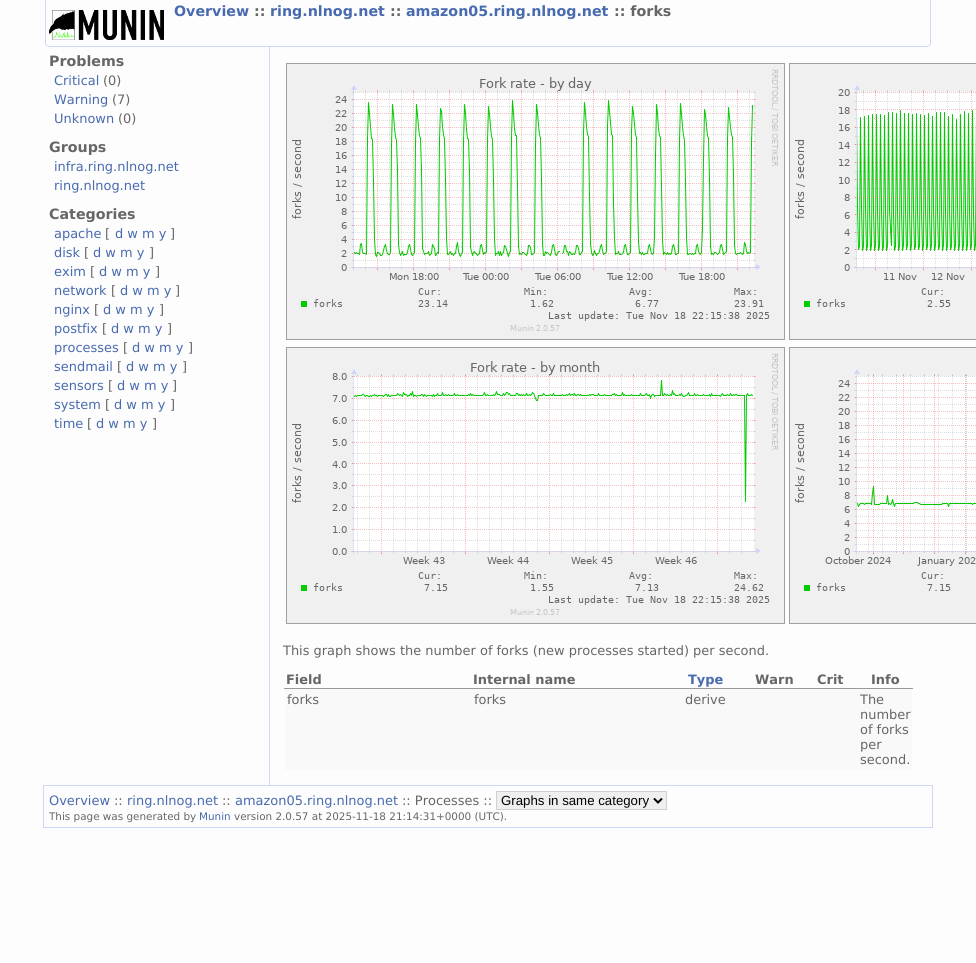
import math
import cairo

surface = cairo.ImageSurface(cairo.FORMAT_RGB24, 976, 963)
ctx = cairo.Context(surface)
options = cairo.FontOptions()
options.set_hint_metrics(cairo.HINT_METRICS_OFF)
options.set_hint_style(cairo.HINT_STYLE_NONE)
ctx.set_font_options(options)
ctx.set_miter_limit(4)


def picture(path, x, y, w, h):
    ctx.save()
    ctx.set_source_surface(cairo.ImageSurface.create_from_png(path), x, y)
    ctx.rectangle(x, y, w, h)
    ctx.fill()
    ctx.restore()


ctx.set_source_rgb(0.992, 0.992, 0.992)
ctx.paint()
ctx.set_source_rgb(0.812, 0.839, 0.973)
ctx.set_fill_rule(cairo.FILL_RULE_EVEN_ODD)
ctx.new_path()
ctx.move_to(45, 0)
ctx.line_to(931, 0)
ctx.line_to(931, 43)
ctx.curve_to(931, 45, 929, 47, 927, 47)
ctx.line_to(49, 47)
ctx.curve_to(47, 47, 45, 45, 45, 43)
ctx.close_path()
ctx.move_to(46, 0)
ctx.line_to(930, 0)
ctx.line_to(930, 43)
ctx.curve_to(930, 45, 929, 46, 927, 46)
ctx.line_to(49, 46)
ctx.curve_to(47, 46, 46, 45, 46, 43)
ctx.close_path()
ctx.fill()
picture("img1.png", 49, 10, 115, 30)
ctx.select_font_face("DejaVu Sans", cairo.FONT_SLANT_NORMAL, cairo.FONT_WEIGHT_BOLD)
ctx.set_font_size(14.25)
ctx.set_source_rgb(0.282, 0.416, 0.686)
ctx.move_to(174, 16)
ctx.show_text("Overview")
ctx.set_source_rgb(0.4, 0.4, 0.4)
ctx.move_to(254, 16)
ctx.show_text("::")
ctx.set_source_rgb(0.282, 0.416, 0.686)
ctx.move_to(270, 16)
ctx.show_text("ring.nlnog.net")
ctx.set_source_rgb(0.4, 0.4, 0.4)
ctx.move_to(390, 16)
ctx.show_text("::")
ctx.set_source_rgb(0.282, 0.416, 0.686)
ctx.move_to(406, 16)
ctx.show_text("amazon05.ring.nlnog.net")
ctx.set_source_rgb(0.4, 0.4, 0.4)
ctx.move_to(614, 16)
ctx.show_text(":: forks")
ctx.move_to(49, 66)
ctx.show_text("Problems")
ctx.select_font_face("DejaVu Sans")
ctx.set_font_size(12.95)
ctx.set_source_rgb(0.282, 0.416, 0.686)
ctx.move_to(54, 85)
ctx.show_text("Critical")
ctx.set_source_rgb(0.4, 0.4, 0.4)
ctx.move_to(103, 85)
ctx.show_text("(0)")
ctx.set_source_rgb(0.282, 0.416, 0.686)
ctx.move_to(54, 104)
ctx.show_text("Warning")
ctx.set_source_rgb(0.4, 0.4, 0.4)
ctx.move_to(112, 104)
ctx.show_text("(7)")
ctx.set_source_rgb(0.282, 0.416, 0.686)
ctx.move_to(54, 123)
ctx.show_text("Unknown")
ctx.set_source_rgb(0.4, 0.4, 0.4)
ctx.move_to(118, 123)
ctx.show_text("(0)")
ctx.select_font_face("DejaVu Sans", cairo.FONT_SLANT_NORMAL, cairo.FONT_WEIGHT_BOLD)
ctx.set_font_size(14.25)
ctx.move_to(49, 152)
ctx.show_text("Groups")
ctx.select_font_face("DejaVu Sans")
ctx.set_font_size(12.95)
ctx.set_source_rgb(0.282, 0.416, 0.686)
ctx.move_to(54, 171)
ctx.show_text("infra.ring.nlnog.net")
ctx.move_to(54, 190)
ctx.show_text("ring.nlnog.net")
ctx.select_font_face("DejaVu Sans", cairo.FONT_SLANT_NORMAL, cairo.FONT_WEIGHT_BOLD)
ctx.set_font_size(14.25)
ctx.set_source_rgb(0.4, 0.4, 0.4)
ctx.move_to(49, 219)
ctx.show_text("Categories")
ctx.select_font_face("DejaVu Sans")
ctx.set_font_size(12.95)
ctx.set_source_rgb(0.282, 0.416, 0.686)
ctx.move_to(54, 238)
ctx.show_text("apache")
ctx.set_source_rgb(0.4, 0.4, 0.4)
ctx.move_to(105, 238)
ctx.show_text("[")
ctx.set_source_rgb(0.282, 0.416, 0.686)
ctx.move_to(115, 238)
ctx.show_text("d w m y")
ctx.set_source_rgb(0.4, 0.4, 0.4)
ctx.move_to(170, 238)
ctx.show_text("]")
ctx.set_source_rgb(0.282, 0.416, 0.686)
ctx.move_to(54, 257)
ctx.show_text("disk")
ctx.set_source_rgb(0.4, 0.4, 0.4)
ctx.move_to(84, 257)
ctx.show_text("[")
ctx.set_source_rgb(0.282, 0.416, 0.686)
ctx.move_to(93, 257)
ctx.show_text("d w m y")
ctx.set_source_rgb(0.4, 0.4, 0.4)
ctx.move_to(149, 257)
ctx.show_text("]")
ctx.set_source_rgb(0.282, 0.416, 0.686)
ctx.move_to(54, 276)
ctx.show_text("exim")
ctx.set_source_rgb(0.4, 0.4, 0.4)
ctx.move_to(90, 276)
ctx.show_text("[")
ctx.set_source_rgb(0.282, 0.416, 0.686)
ctx.move_to(99, 276)
ctx.show_text("d w m y")
ctx.set_source_rgb(0.4, 0.4, 0.4)
ctx.move_to(155, 276)
ctx.show_text("]")
ctx.set_source_rgb(0.282, 0.416, 0.686)
ctx.move_to(54, 295)
ctx.show_text("network")
ctx.set_source_rgb(0.4, 0.4, 0.4)
ctx.move_to(111, 295)
ctx.show_text("[")
ctx.set_source_rgb(0.282, 0.416, 0.686)
ctx.move_to(120, 295)
ctx.show_text("d w m y")
ctx.set_source_rgb(0.4, 0.4, 0.4)
ctx.move_to(175, 295)
ctx.show_text("]")
ctx.set_source_rgb(0.282, 0.416, 0.686)
ctx.move_to(54, 314)
ctx.show_text("nginx")
ctx.set_source_rgb(0.4, 0.4, 0.4)
ctx.move_to(94, 314)
ctx.show_text("[")
ctx.set_source_rgb(0.282, 0.416, 0.686)
ctx.move_to(103, 314)
ctx.show_text("d w m y")
ctx.set_source_rgb(0.4, 0.4, 0.4)
ctx.move_to(159, 314)
ctx.show_text("]")
ctx.set_source_rgb(0.282, 0.416, 0.686)
ctx.move_to(54, 333)
ctx.show_text("postfix")
ctx.set_source_rgb(0.4, 0.4, 0.4)
ctx.move_to(102, 333)
ctx.show_text("[")
ctx.set_source_rgb(0.282, 0.416, 0.686)
ctx.move_to(111, 333)
ctx.show_text("d w m y")
ctx.set_source_rgb(0.4, 0.4, 0.4)
ctx.move_to(167, 333)
ctx.show_text("]")
ctx.set_source_rgb(0.282, 0.416, 0.686)
ctx.move_to(54, 352)
ctx.show_text("processes")
ctx.set_source_rgb(0.4, 0.4, 0.4)
ctx.move_to(123, 352)
ctx.show_text("[")
ctx.set_source_rgb(0.282, 0.416, 0.686)
ctx.move_to(132, 352)
ctx.show_text("d w m y")
ctx.set_source_rgb(0.4, 0.4, 0.4)
ctx.move_to(188, 352)
ctx.show_text("]")
ctx.set_source_rgb(0.282, 0.416, 0.686)
ctx.move_to(54, 371)
ctx.show_text("sendmail")
ctx.set_source_rgb(0.4, 0.4, 0.4)
ctx.move_to(117, 371)
ctx.show_text("[")
ctx.set_source_rgb(0.282, 0.416, 0.686)
ctx.move_to(126, 371)
ctx.show_text("d w m y")
ctx.set_source_rgb(0.4, 0.4, 0.4)
ctx.move_to(182, 371)
ctx.show_text("]")
ctx.set_source_rgb(0.282, 0.416, 0.686)
ctx.move_to(54, 390)
ctx.show_text("sensors")
ctx.set_source_rgb(0.4, 0.4, 0.4)
ctx.move_to(108, 390)
ctx.show_text("[")
ctx.set_source_rgb(0.282, 0.416, 0.686)
ctx.move_to(117, 390)
ctx.show_text("d w m y")
ctx.set_source_rgb(0.4, 0.4, 0.4)
ctx.move_to(172, 390)
ctx.show_text("]")
ctx.set_source_rgb(0.282, 0.416, 0.686)
ctx.move_to(54, 409)
ctx.show_text("system")
ctx.set_source_rgb(0.4, 0.4, 0.4)
ctx.move_to(105, 409)
ctx.show_text("[")
ctx.set_source_rgb(0.282, 0.416, 0.686)
ctx.move_to(114, 409)
ctx.show_text("d w m y")
ctx.set_source_rgb(0.4, 0.4, 0.4)
ctx.move_to(170, 409)
ctx.show_text("]")
ctx.set_source_rgb(0.282, 0.416, 0.686)
ctx.move_to(54, 428)
ctx.show_text("time")
ctx.set_source_rgb(0.4, 0.4, 0.4)
ctx.move_to(87, 428)
ctx.show_text("[")
ctx.set_source_rgb(0.282, 0.416, 0.686)
ctx.move_to(96, 428)
ctx.show_text("d w m y")
ctx.set_source_rgb(0.4, 0.4, 0.4)
ctx.move_to(152, 428)
ctx.show_text("]")
ctx.set_source_rgb(0.812, 0.839, 0.973)
ctx.rectangle(269, 47, 1, 738)
ctx.fill()
ctx.rectangle(286.5, 63.5, 498, 276)
ctx.set_source_rgb(0.627, 0.627, 0.627)
ctx.set_line_width(1)
ctx.stroke()
picture("img2.png", 287, 64, 497, 275)
ctx.rectangle(789.5, 63.5, 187, 276)
ctx.stroke()
picture("img3.png", 790, 64, 186, 275)
ctx.rectangle(286.5, 347.5, 498, 276)
ctx.stroke()
picture("img4.png", 287, 348, 497, 275)
ctx.rectangle(789.5, 347.5, 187, 276)
ctx.stroke()
picture("img5.png", 790, 348, 186, 275)
ctx.set_source_rgb(0.4, 0.4, 0.4)
ctx.move_to(283, 655)
ctx.show_text("This graph shows the number of forks (new processes started) per second.")
ctx.select_font_face("DejaVu Sans", cairo.FONT_SLANT_NORMAL, cairo.FONT_WEIGHT_BOLD)
ctx.move_to(286, 684)
ctx.show_text("Field")
ctx.move_to(473, 684)
ctx.show_text("Internal name")
ctx.set_source_rgb(0.282, 0.416, 0.686)
ctx.move_to(688, 684)
ctx.show_text("Type")
ctx.set_source_rgb(0.4, 0.4, 0.4)
ctx.move_to(755, 684)
ctx.show_text("Warn")
ctx.move_to(817, 684)
ctx.show_text("Crit")
ctx.set_source_rgb(0.6, 0.6, 0.6)
ctx.rectangle(284, 688, 629, 1)
ctx.fill()
ctx.set_source_rgb(0.4, 0.4, 0.4)
ctx.move_to(871, 684)
ctx.show_text("Info")
ctx.set_source_rgb(0.973, 0.973, 0.973)
ctx.rectangle(285, 689, 627, 81)
ctx.fill()
ctx.select_font_face("DejaVu Sans")
ctx.set_source_rgb(0.4, 0.4, 0.4)
ctx.move_to(287, 704)
ctx.show_text("forks")
ctx.move_to(474, 704)
ctx.show_text("forks")
ctx.move_to(685, 704)
ctx.show_text("derive")
ctx.move_to(860, 704)
ctx.show_text("The")
ctx.move_to(860, 719)
ctx.show_text("number")
ctx.move_to(860, 734)
ctx.show_text("of forks")
ctx.move_to(860, 749)
ctx.show_text("per")
ctx.move_to(860, 764)
ctx.show_text("second.")
ctx.rectangle(43.5, 785.5, 889, 42)
ctx.set_source_rgb(0.812, 0.839, 0.973)
ctx.stroke()
ctx.set_source_rgb(0.282, 0.416, 0.686)
ctx.move_to(49, 805)
ctx.show_text("Overview")
ctx.set_source_rgb(0.4, 0.4, 0.4)
ctx.move_to(114, 805)
ctx.show_text("::")
ctx.set_source_rgb(0.282, 0.416, 0.686)
ctx.move_to(127, 805)
ctx.show_text("ring.nlnog.net")
ctx.set_source_rgb(0.4, 0.4, 0.4)
ctx.move_to(222, 805)
ctx.show_text("::")
ctx.set_source_rgb(0.282, 0.416, 0.686)
ctx.move_to(235, 805)
ctx.show_text("amazon05.ring.nlnog.net")
ctx.set_source_rgb(0.4, 0.4, 0.4)
ctx.move_to(402, 805)
ctx.show_text(":: Processes ::")
ctx.set_source_rgb(0.937, 0.937, 0.937)
ctx.rectangle(496.5, 791.5, 170, 18)
ctx.fill_preserve()
ctx.set_source_rgb(0.82, 0.82, 0.82)
ctx.stroke()
ctx.new_path()
ctx.move_to(654, 798.5)
ctx.line_to(658, 802.5)
ctx.line_to(662, 798.5)
ctx.set_source_rgb(0, 0, 0)
ctx.set_line_width(2)
ctx.stroke()
ctx.select_font_face("Liberation Sans")
ctx.set_font_size(13.25)
ctx.move_to(501, 805)
ctx.show_text("Graphs in same category")
ctx.select_font_face("DejaVu Sans")
ctx.set_font_size(10.4)
ctx.set_source_rgb(0.4, 0.4, 0.4)
ctx.move_to(49, 820)
ctx.show_text("This page was generated by")
ctx.set_source_rgb(0.282, 0.416, 0.686)
ctx.move_to(199, 820)
ctx.show_text("Munin")
ctx.set_source_rgb(0.4, 0.4, 0.4)
ctx.move_to(234, 820)
ctx.show_text("version 2.0.57 at 2025-11-18 21:14:31+0000 (UTC).")
surface.write_to_png("page.png")
